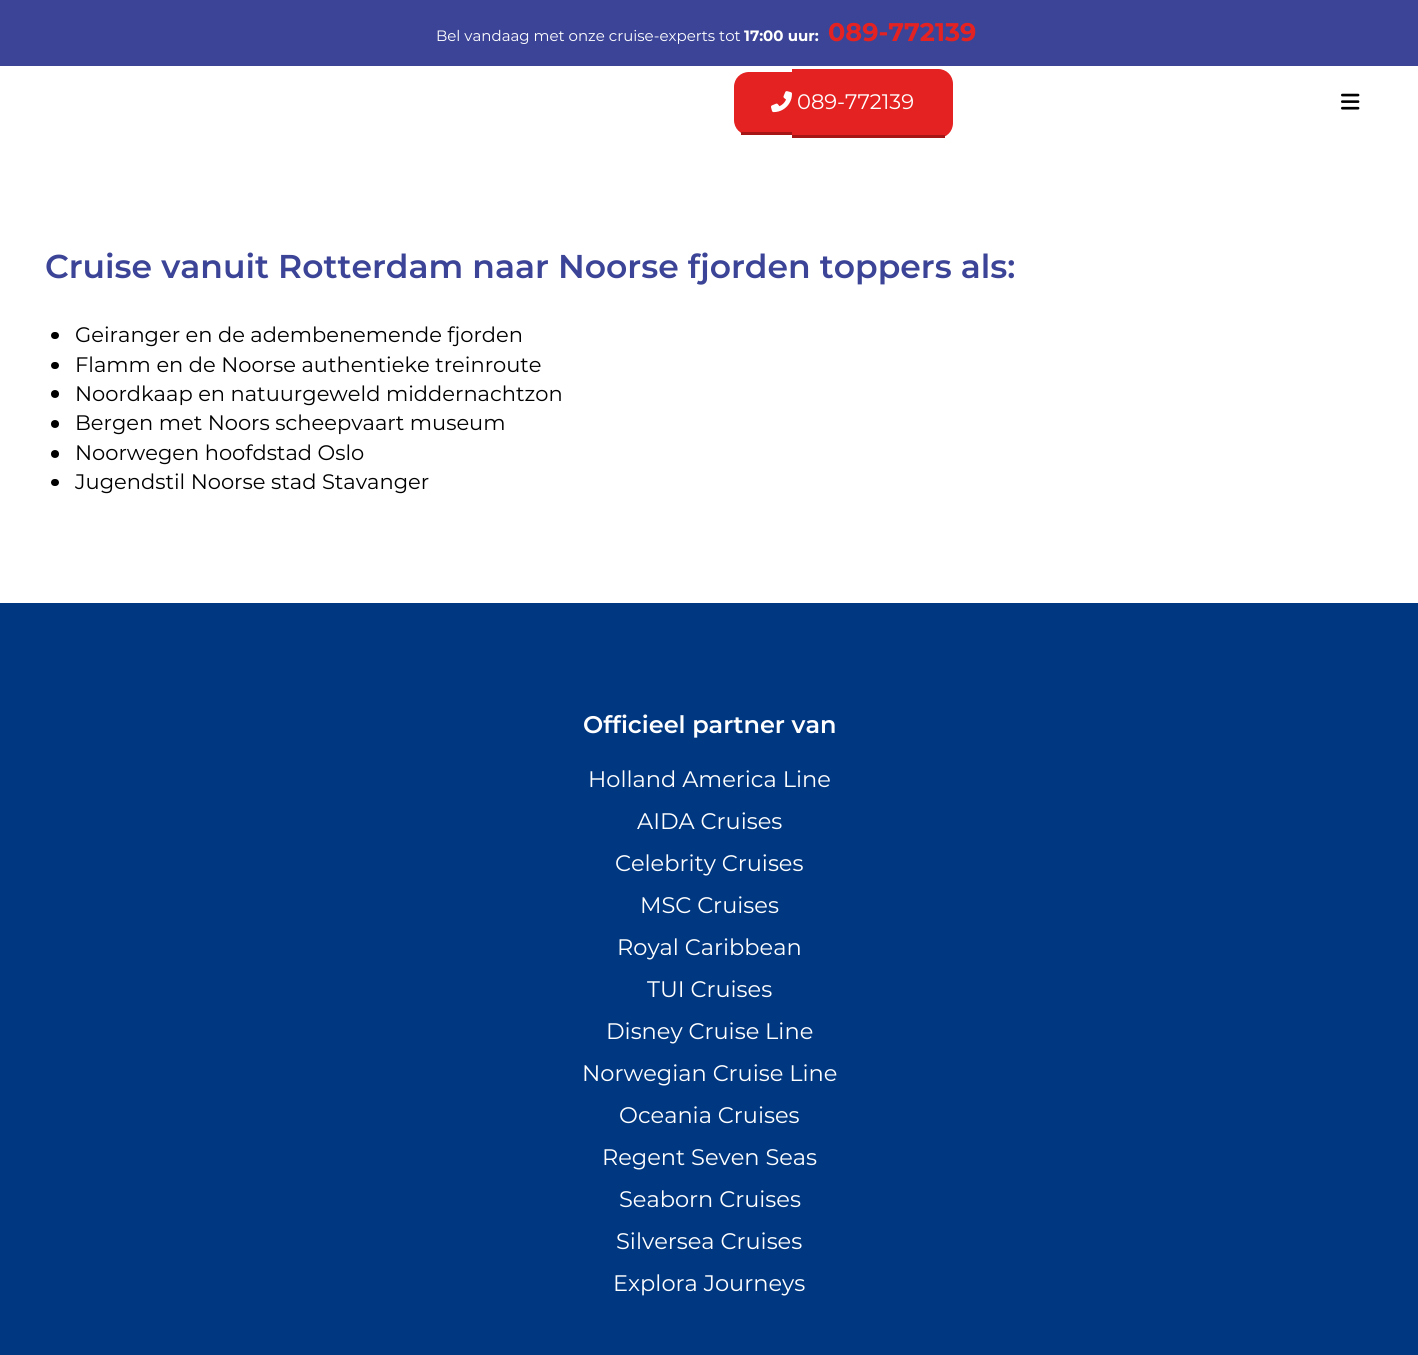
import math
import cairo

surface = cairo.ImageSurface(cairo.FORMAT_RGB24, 1418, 1355)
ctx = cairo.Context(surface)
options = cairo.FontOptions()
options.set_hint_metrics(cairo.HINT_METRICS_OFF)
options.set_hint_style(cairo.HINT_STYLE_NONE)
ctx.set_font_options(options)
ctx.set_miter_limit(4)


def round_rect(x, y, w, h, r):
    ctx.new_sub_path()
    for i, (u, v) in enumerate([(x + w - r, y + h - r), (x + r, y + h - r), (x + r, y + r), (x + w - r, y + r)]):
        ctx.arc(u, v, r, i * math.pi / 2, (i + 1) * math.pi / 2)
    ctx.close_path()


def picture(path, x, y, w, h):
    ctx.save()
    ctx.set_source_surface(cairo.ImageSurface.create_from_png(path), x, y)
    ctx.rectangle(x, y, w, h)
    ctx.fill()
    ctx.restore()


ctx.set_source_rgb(1, 1, 1)
ctx.paint()
ctx.set_source_rgb(0.231, 0.267, 0.588)
ctx.rectangle(0, 0, 1418, 66)
ctx.fill()
ctx.select_font_face("Montserrat")
ctx.set_font_size(15)
ctx.set_source_rgb(1, 1, 1)
ctx.move_to(436, 41)
ctx.show_text("Bel vandaag met onze cruise-experts tot")
ctx.select_font_face("Montserrat", cairo.FONT_SLANT_NORMAL, cairo.FONT_WEIGHT_BOLD)
ctx.move_to(744, 41)
ctx.show_text("17:00 uur:")
ctx.set_font_size(25.5)
ctx.set_source_rgb(0.898, 0.133, 0.133)
ctx.move_to(828, 41)
ctx.show_text("089-772139")
ctx.new_path()
ctx.move_to(749, 72)
ctx.line_to(792, 72)
ctx.line_to(792, 135)
ctx.line_to(749, 135)
ctx.curve_to(740.5, 135, 734, 128.5, 734, 120)
ctx.line_to(734, 87)
ctx.curve_to(734, 78.5, 740.5, 72, 749, 72)
ctx.close_path()
ctx.fill()
ctx.set_source_rgb(0.655, 0.086, 0.086)
ctx.rectangle(741, 132, 51, 3)
ctx.fill()
ctx.set_source_rgb(0.898, 0.133, 0.133)
ctx.new_path()
ctx.move_to(792, 69)
ctx.line_to(938, 69)
ctx.curve_to(946.5, 69, 953, 75.5, 953, 84)
ctx.line_to(953, 123)
ctx.curve_to(953, 131.5, 946.5, 138, 938, 138)
ctx.line_to(792, 138)
ctx.close_path()
ctx.fill()
ctx.set_source_rgb(0.655, 0.086, 0.086)
ctx.rectangle(792, 135, 153, 3)
ctx.fill()
picture("img1.png", 771, 91, 21, 22)
ctx.select_font_face("Montserrat")
ctx.set_font_size(21)
ctx.set_source_rgb(1, 1, 1)
ctx.move_to(797, 109)
ctx.show_text("089-772139")
picture("img2.png", 1341, 93, 19, 17)
ctx.select_font_face("Montserrat SemiBold")
ctx.set_font_size(33)
ctx.set_source_rgb(0.231, 0.267, 0.588)
ctx.move_to(45, 278)
ctx.show_text("Cruise vanuit Rotterdam naar Noorse fjorden toppers als:")
ctx.set_source_rgb(0, 0, 0)
round_rect(51, 332, 8, 7, 3.5)
ctx.fill()
ctx.select_font_face("Montserrat")
ctx.set_font_size(21)
ctx.move_to(75, 342)
ctx.show_text("Geiranger en de adembenemende fjorden")
round_rect(51, 362, 8, 7, 3.5)
ctx.fill()
ctx.move_to(75, 372)
ctx.show_text("Flamm en de Noorse authentieke treinroute")
ctx.new_path()
ctx.arc(55, 394, 4, 0, 2 * math.pi)
ctx.fill()
ctx.move_to(75, 401)
ctx.show_text("Noordkaap en natuurgeweld middernachtzon")
ctx.new_path()
ctx.arc(55, 424, 4, 0, 2 * math.pi)
ctx.fill()
ctx.move_to(75, 430)
ctx.show_text("Bergen met Noors scheepvaart museum")
ctx.new_path()
ctx.arc(55, 454, 4, 0, 2 * math.pi)
ctx.fill()
ctx.move_to(75, 460)
ctx.show_text("Noorwegen hoofdstad Oslo")
round_rect(51, 479, 8, 7, 3.5)
ctx.fill()
ctx.move_to(75, 489)
ctx.show_text("Jugendstil Noorse stad Stavanger")
ctx.set_source_rgb(0, 0.216, 0.506)
ctx.rectangle(0, 603, 1418, 752)
ctx.fill()
ctx.select_font_face("Montserrat SemiBold")
ctx.set_font_size(24)
ctx.set_source_rgb(1, 1, 1)
ctx.move_to(583, 733)
ctx.show_text("Officieel partner van")
ctx.select_font_face("Montserrat")
ctx.set_font_size(22.5)
ctx.move_to(588, 787)
ctx.show_text("Holland America Line")
ctx.move_to(637, 829)
ctx.show_text("AIDA Cruises")
ctx.move_to(615, 871)
ctx.show_text("Celebrity Cruises")
ctx.move_to(640, 913)
ctx.show_text("MSC Cruises")
ctx.move_to(617, 955)
ctx.show_text("Royal Caribbean")
ctx.move_to(647, 997)
ctx.show_text("TUI Cruises")
ctx.move_to(606, 1039)
ctx.show_text("Disney Cruise Line")
ctx.move_to(582, 1081)
ctx.show_text("Norwegian Cruise Line")
ctx.move_to(619, 1123)
ctx.show_text("Oceania Cruises")
ctx.move_to(602, 1165)
ctx.show_text("Regent Seven Seas")
ctx.move_to(619, 1207)
ctx.show_text("Seaborn Cruises")
ctx.move_to(616, 1249)
ctx.show_text("Silversea Cruises")
ctx.move_to(613, 1291)
ctx.show_text("Explora Journeys")
surface.write_to_png("page.png")
